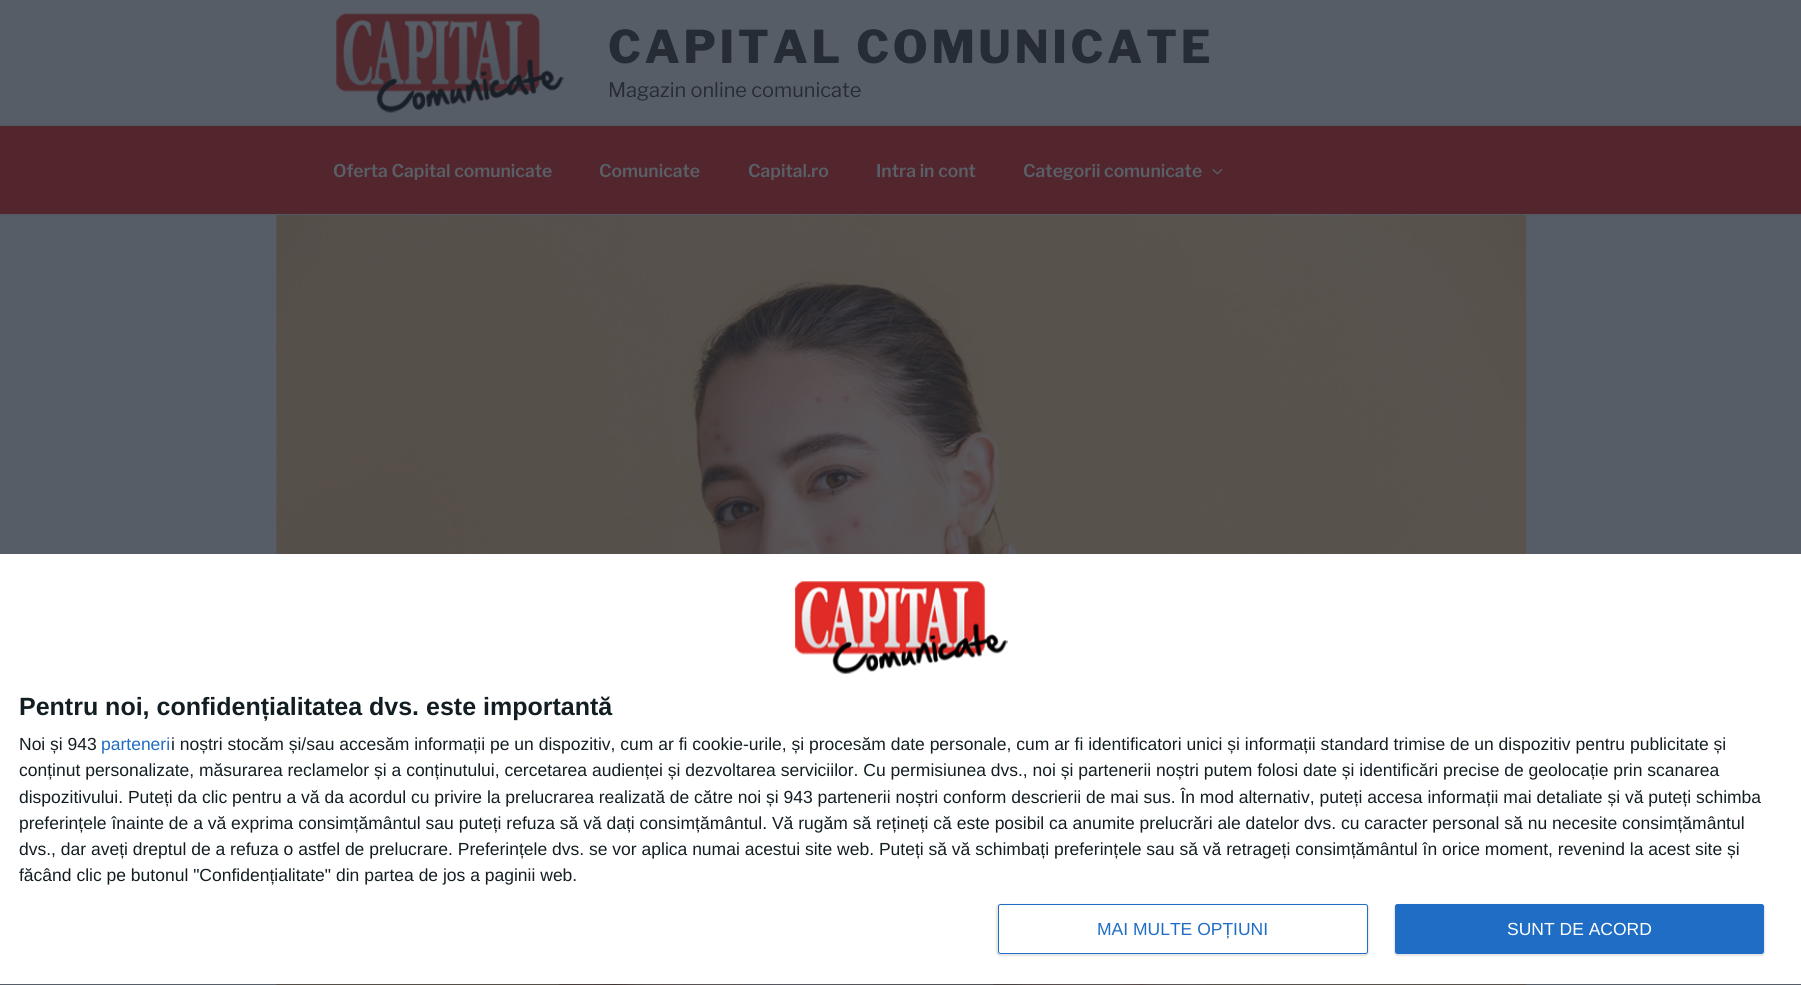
import math
import cairo

surface = cairo.ImageSurface(cairo.FORMAT_RGB24, 1801, 985)
ctx = cairo.Context(surface)
options = cairo.FontOptions()
options.set_hint_metrics(cairo.HINT_METRICS_OFF)
options.set_hint_style(cairo.HINT_STYLE_NONE)
ctx.set_font_options(options)
ctx.set_miter_limit(4)


def spaced_text(x, y, s, letter, word):
    ctx.move_to(x, y)
    for ch in s:
        ctx.show_text(ch)
        ctx.rel_move_to(letter + word * (ch == ' '), 0)


def round_rect(x, y, w, h, r):
    ctx.new_sub_path()
    for i, (u, v) in enumerate([(x + w - r, y + h - r), (x + r, y + h - r), (x + r, y + r), (x + w - r, y + r)]):
        ctx.arc(u, v, r, i * math.pi / 2, (i + 1) * math.pi / 2)
    ctx.close_path()


def shadow(x, y, w, h, r, blur, alpha):
    ctx.push_group_with_content(cairo.CONTENT_ALPHA)
    ctx.set_operator(cairo.OPERATOR_SOURCE)
    for i in range(15, -16, -2):
        e = blur * i / 6
        if min(w, h) + 2 * e > 0:
            ctx.set_source_rgba(0, 0, 0, alpha * math.erfc((i - 1) / 8.5) / 2)
            round_rect(x - e, y - e, w + 2 * e, h + 2 * e, max(0, min(r + e + blur * .6, min(w, h) / 2 + e)))
            ctx.fill()
    ctx.mask(ctx.pop_group())


def picture(path, x, y, w, h):
    ctx.save()
    ctx.set_source_surface(cairo.ImageSurface.create_from_png(path), x, y)
    ctx.rectangle(x, y, w, h)
    ctx.fill()
    ctx.restore()


ctx.set_source_rgb(0.341, 0.365, 0.4)
ctx.paint()
picture("img1.png", 336, 13, 228, 100)
ctx.select_font_face("Libre Franklin ExtraBold")
ctx.set_font_size(45)
ctx.set_source_rgb(0.149, 0.173, 0.204)
spaced_text(608, 63, "CAPITAL COMUNICATE", 3.6, 0)
ctx.select_font_face("Libre Franklin")
ctx.set_font_size(20)
ctx.move_to(608, 97)
ctx.show_text("Magazin online comunicate")
ctx.set_source_rgb(0.325, 0.149, 0.18)
ctx.rectangle(0, 126, 1801, 88)
ctx.fill()
ctx.set_source_rgb(0.325, 0.345, 0.396)
ctx.rectangle(0, 125, 1801, 1)
ctx.fill()
ctx.rectangle(0, 214, 1801, 1)
ctx.fill()
ctx.select_font_face("Libre Franklin SemiBold")
ctx.set_font_size(17.5)
ctx.set_source_rgb(0.349, 0.373, 0.404)
ctx.move_to(333, 177)
ctx.show_text("Oferta Capital comunicate")
ctx.move_to(599, 177)
ctx.show_text("Comunicate")
ctx.move_to(748, 177)
ctx.show_text("Capital.ro")
ctx.move_to(876, 177)
ctx.show_text("Intra in cont")
ctx.move_to(1023, 177)
ctx.show_text("Categorii comunicate")
picture("img2.png", 1212, 168, 11, 7)
picture("img3.png", 276, 215, 1251, 770)
ctx.set_source_rgb(1, 1, 1)
ctx.rectangle(0, 554, 1801, 430)
ctx.fill()
picture("img4.png", 795, 581, 213, 93)
ctx.select_font_face("Liberation Sans", cairo.FONT_SLANT_NORMAL, cairo.FONT_WEIGHT_BOLD)
ctx.set_font_size(25)
ctx.set_source_rgb(0.078, 0.118, 0.137)
ctx.move_to(19, 715)
ctx.show_text("Pentru noi, confidențialitatea dvs. este importantă")
ctx.select_font_face("Liberation Sans")
ctx.set_font_size(17.5)
ctx.move_to(19, 750)
ctx.show_text("Noi și 943")
ctx.set_source_rgb(0.125, 0.427, 0.773)
ctx.move_to(101, 750)
ctx.show_text("parteneri")
ctx.set_source_rgb(0.078, 0.118, 0.137)
ctx.move_to(171, 750)
ctx.show_text("i noștri stocăm și/sau accesăm informații pe un dispozitiv, cum ar fi cookie-urile, și procesăm date personale, cum ar fi identificatori unici și informații standard trimise de un dispozitiv pentru publicitate și")
ctx.move_to(19, 776)
ctx.show_text("conținut personalizate, măsurarea reclamelor și a conținutului, cercetarea audienței și dezvoltarea serviciilor. Cu permisiunea dvs., noi și partenerii noștri putem folosi date și identificări precise de geolocație prin scanarea")
ctx.move_to(19, 803)
ctx.show_text("dispozitivului. Puteți da clic pentru a vă da acordul cu privire la prelucrarea realizată de către noi și 943 partenerii noștri conform descrierii de mai sus. În mod alternativ, puteți accesa informații mai detaliate și vă puteți schimba")
ctx.move_to(19, 829)
ctx.show_text("preferințele înainte de a vă exprima consimțământul sau puteți refuza să vă dați consimțământul. Vă rugăm să rețineți că este posibil ca anumite prelucrări ale datelor dvs. cu caracter personal să nu necesite consimțământul")
ctx.move_to(19, 855)
ctx.show_text("dvs., dar aveți dreptul de a refuza o astfel de prelucrare. Preferințele dvs. se vor aplica numai acestui site web. Puteți să vă schimbați preferințele sau să vă retrageți consimțământul în orice moment, revenind la acest site și")
ctx.move_to(19, 881)
ctx.show_text("făcând clic pe butonul \"Confidențialitate\" din partea de jos a paginii web.")
ctx.set_source_rgb(0, 0, 0)
shadow(996, 904, 373, 52, 4, 0.5, 0.1)
ctx.set_source_rgb(1, 1, 1)
round_rect(998.5, 904.5, 369, 49, 2)
ctx.fill_preserve()
ctx.set_source_rgb(0.125, 0.427, 0.773)
ctx.set_line_width(1)
ctx.stroke()
ctx.move_to(1097, 935)
ctx.show_text("MAI MULTE OPȚIUNI")
ctx.set_source_rgb(0, 0, 0)
shadow(1394, 904, 371, 52, 4, 0.5, 0.1)
ctx.set_source_rgb(0.125, 0.427, 0.773)
round_rect(1395, 904, 369, 50, 2.5)
ctx.fill()
ctx.set_source_rgb(1, 1, 1)
ctx.move_to(1507, 935)
ctx.show_text("SUNT DE ACORD")
surface.write_to_png("page.png")
